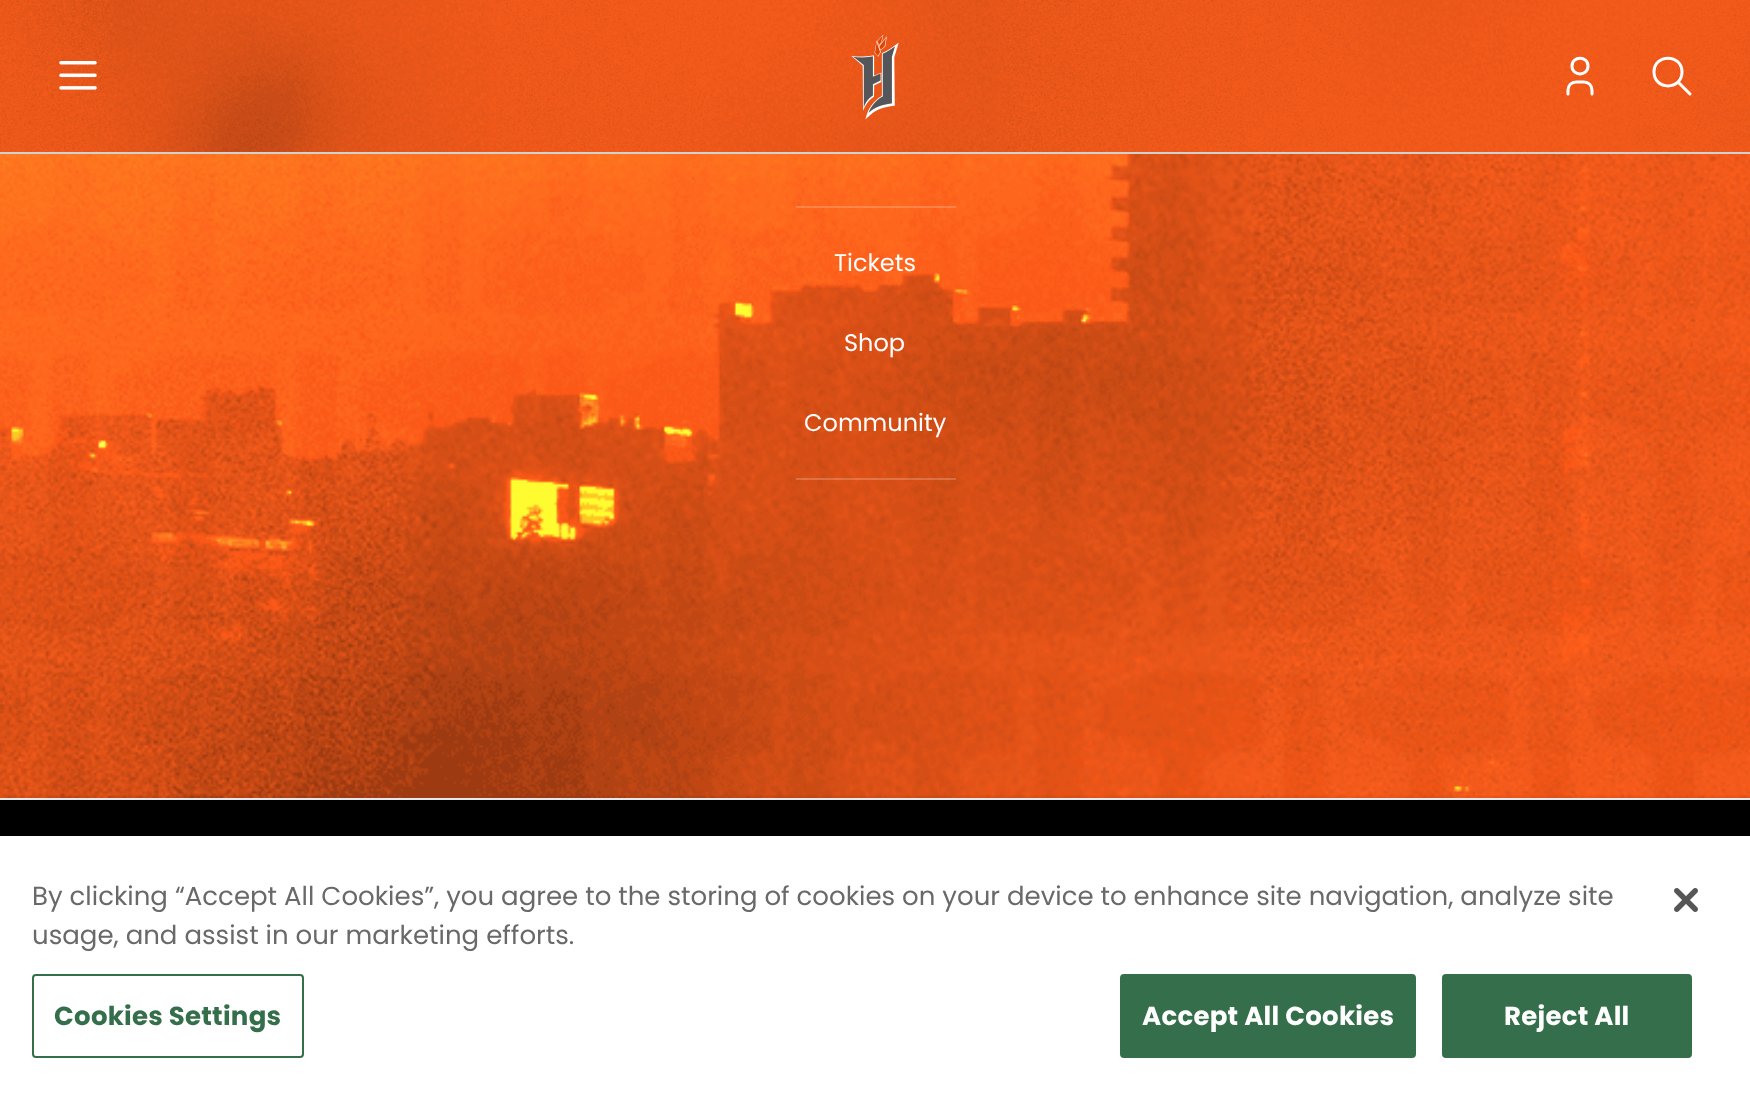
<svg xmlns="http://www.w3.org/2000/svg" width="1750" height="1104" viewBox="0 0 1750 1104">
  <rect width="100%" height="100%" fill="#000"/>
  <path d="M0 152h1750v2H0z" fill="#d1d1d1"/>
  <image x="0" y="0" width="1750" height="152" href="img/1.png"/>
  <image x="59" y="61" width="38" height="29" href="img/2.png"/>
  <image x="851" y="34" width="48" height="86" href="img/3.png"/>
  <path d="M1572 66C1572 76.5 1588 76.5 1588 66C1588 55.5 1572 55.5 1572 66ZM1568 94V90C1568 85.5 1571.5 82 1576 82H1584C1588.5 82 1592 85.5 1592 90V94" fill="none" stroke="#fff" stroke-width="3" stroke-linecap="round" stroke-linejoin="round"/>
  <path d="M1654 72C1654 90.5 1682 90.5 1682 72C1682 53.5 1654 53.5 1654 72ZM1690 94L1678 82" fill="none" stroke="#fff" stroke-width="3" stroke-linecap="round" stroke-linejoin="round"/>
  <image x="0" y="154" width="1750" height="644" href="img/4.png"/>
  <path d="M796 206h160v2H796z" fill="#ffffff33"/>
  <path d="M796 478h160v2H796z" fill="#ffffff33"/>
  <path d="M0 798h1750v2H0z" fill="#e5e7eb"/>
  <path d="M0 836h1750v268H0z" fill="#fff"/>
  <rect x="33" y="975" width="270" height="82" rx="3" fill="none" stroke="#346e4a" stroke-width="2"/>
  <rect x="1121" y="975" width="294" height="82" rx="3" fill="#346e4a" stroke="#346e4a" stroke-width="2"/>
  <rect x="1443" y="975" width="248" height="82" rx="3" fill="#346e4a" stroke="#346e4a" stroke-width="2"/>
  <image x="1674" y="888" width="24" height="24" href="img/5.png"/>
  <g font-family="Poppins" font-size="24" fill="#fff">
    <text x="834" y="271">Tickets</text>
    <text x="844" y="351">Shop</text>
    <text x="804" y="431">Community</text>
  </g>
  <g font-family="Poppins" font-size="26.02" fill="#696969">
    <text x="32" y="905">By clicking “Accept All Cookies”, you agree to the storing of cookies on your device to enhance site navigation, analyze site</text>
    <text x="32" y="944">usage, and assist in our marketing efforts.</text>
  </g>
  <text x="54" y="1025" font-family="Poppins" font-size="26.02" font-weight="bold" letter-spacing="0.25" fill="#346e4a">Cookies Settings</text>
  <g font-family="Poppins" font-size="26.02" font-weight="bold" letter-spacing="0.25" fill="#fff">
    <text x="1142" y="1025">Accept All Cookies</text>
    <text x="1504" y="1025">Reject All</text>
  </g>
</svg>
